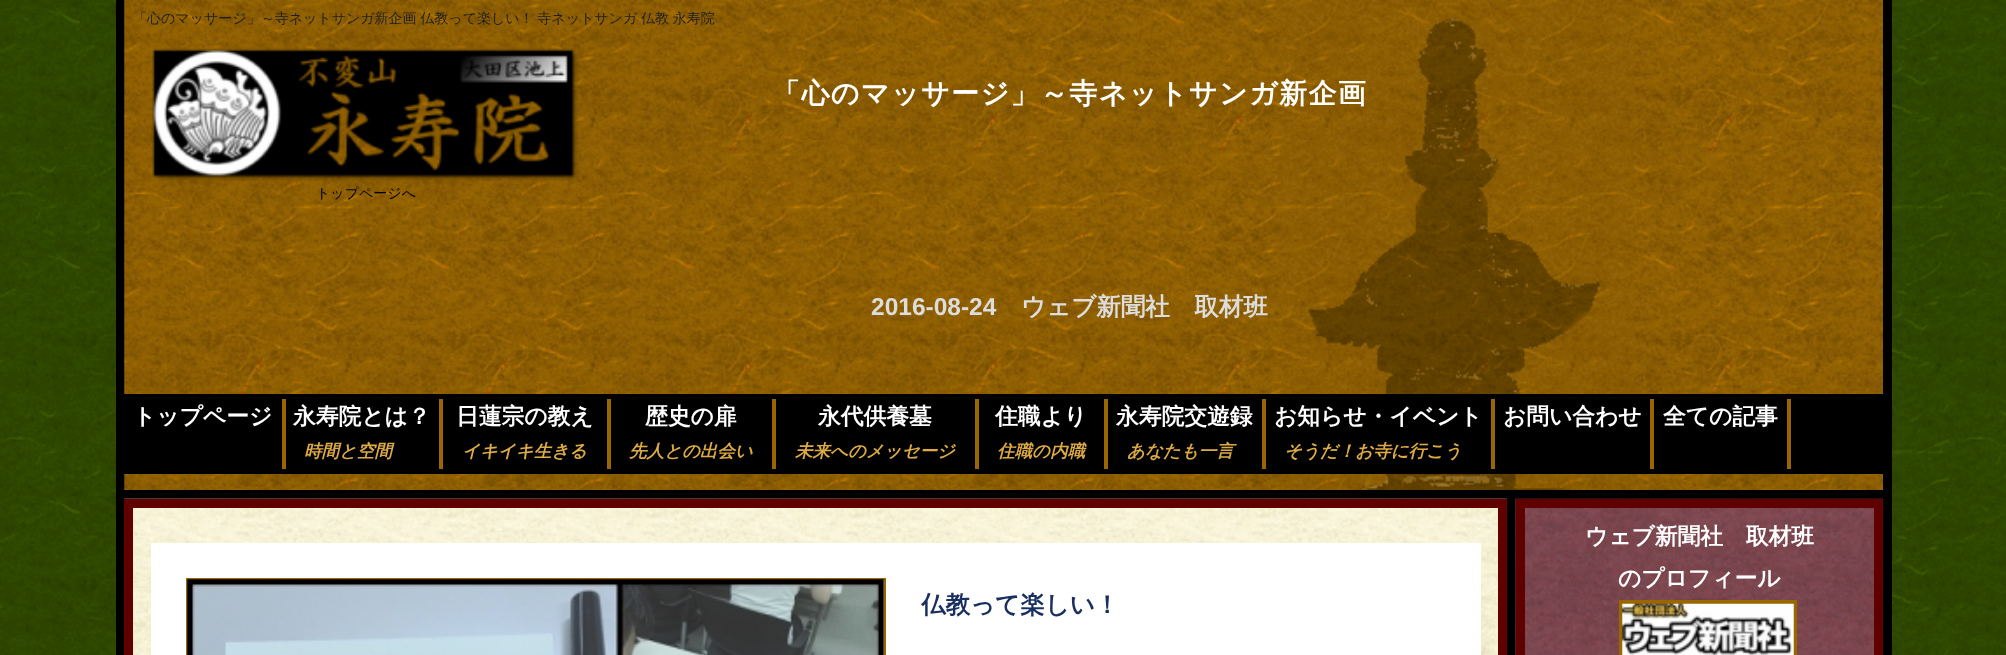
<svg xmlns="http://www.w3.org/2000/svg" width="2006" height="655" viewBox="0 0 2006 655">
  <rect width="100%" height="100%" fill="#fff"/>
  <image x="0" y="0" width="2006" height="655" href="img/1.png"/>
  <path d="M116 0h1776v655H116z" fill="#000"/>
  <image x="124" y="0" width="1759" height="490" href="img/2.png"/>
  <image x="152" y="48" width="427" height="133" href="img/3.png"/>
  <path d="M124 394h1759v80H124z" fill="#000"/>
  <path d="M282 399h4v70H282z" fill="#960"/>
  <path d="M439 399h4v70H439z" fill="#960"/>
  <path d="M607 399h4v70H607z" fill="#960"/>
  <path d="M772 399h4v70H772z" fill="#960"/>
  <path d="M975 399h4v70H975z" fill="#960"/>
  <path d="M1104 399h4v70H1104z" fill="#960"/>
  <path d="M1262 399h4v70H1262z" fill="#960"/>
  <path d="M1491 399h4v70H1491z" fill="#960"/>
  <path d="M1650 399h4v70H1650z" fill="#960"/>
  <path d="M1787 399h4v70H1787z" fill="#960"/>
  <image x="1515" y="498" width="368" height="157" href="img/4.png"/>
  <path d="M1520.5 503.5h358v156H1520.5z" fill="none" stroke="#600000" stroke-width="9"/>
  <path d="M1621 602h174v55H1621z" fill="none" stroke="#960" stroke-width="4"/>
  <image x="1622" y="603" width="172" height="52" href="img/5.png"/>
  <image x="124" y="498" width="1383" height="157" href="img/6.png"/>
  <path d="M128.5 503.5h1374v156H128.5z" fill="none" stroke="#600000" stroke-width="9"/>
  <path d="M151 543h1330v112H151z" fill="#fff"/>
  <path d="M187 579h698v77H187z" fill="none" stroke="#960" stroke-width="2"/>
  <image x="187" y="579" width="697" height="76" href="img/7.png"/>
  <text x="133" y="23" word-spacing="-0.5" font-family="WenQuanYi Zen Hei" font-size="14" font-weight="500" fill="#1f1f1f">「心のマッサージ」～寺ネットサンガ新企画 仏教って楽しい！ 寺ネットサンガ 仏教 永寿院</text>
  <text x="772" y="103" font-family="WenQuanYi Zen Hei" font-size="28" font-weight="bold" letter-spacing="1.4" fill="#fff">「心のマッサージ」～寺ネットサンガ新企画</text>
  <text x="316" y="198" font-family="WenQuanYi Zen Hei" font-size="14" font-weight="500" fill="#000">トップページへ</text>
  <text x="871" y="315" font-family="Liberation Sans" font-size="24.5" font-weight="bold" fill="#ddd">2016-08-24</text>
  <text x="1021" y="315" font-family="WenQuanYi Zen Hei" font-size="24.5" font-weight="bold" fill="#ddd">ウェブ新聞社　取材班</text>
  <g font-family="WenQuanYi Zen Hei" font-size="22.75" font-weight="bold" fill="#fff">
    <text x="133" y="424">トップページ</text>
    <text x="293" y="424">永寿院とは？</text>
  </g>
  <text x="304" y="457" font-family="WenQuanYi Zen Hei" font-size="17.5" font-weight="bold" font-style="italic" fill="#da4">時間と空間</text>
  <text x="456" y="424" font-family="WenQuanYi Zen Hei" font-size="22.75" font-weight="bold" fill="#fff">日蓮宗の教え</text>
  <text x="462" y="457" font-family="WenQuanYi Zen Hei" font-size="17.5" font-weight="bold" font-style="italic" fill="#da4">イキイキ生きる</text>
  <text x="645" y="424" font-family="WenQuanYi Zen Hei" font-size="22.75" font-weight="bold" fill="#fff">歴史の扉</text>
  <text x="629" y="457" font-family="WenQuanYi Zen Hei" font-size="17.5" font-weight="bold" font-style="italic" fill="#da4">先人との出会い</text>
  <text x="818" y="424" font-family="WenQuanYi Zen Hei" font-size="22.75" font-weight="bold" fill="#fff">永代供養墓</text>
  <text x="795" y="457" font-family="WenQuanYi Zen Hei" font-size="17.5" font-weight="bold" font-style="italic" fill="#da4">未来へのメッセージ</text>
  <text x="995" y="424" font-family="WenQuanYi Zen Hei" font-size="22.75" font-weight="bold" fill="#fff">住職より</text>
  <text x="997" y="457" font-family="WenQuanYi Zen Hei" font-size="17.5" font-weight="bold" font-style="italic" fill="#da4">住職の内職</text>
  <text x="1116" y="424" font-family="WenQuanYi Zen Hei" font-size="22.75" font-weight="bold" fill="#fff">永寿院交遊録</text>
  <text x="1127" y="457" font-family="WenQuanYi Zen Hei" font-size="17.5" font-weight="bold" font-style="italic" fill="#da4">あなたも一言</text>
  <text x="1274" y="424" font-family="WenQuanYi Zen Hei" font-size="22.75" font-weight="bold" fill="#fff">お知らせ・イベント</text>
  <text x="1284" y="457" font-family="WenQuanYi Zen Hei" font-size="17.5" font-weight="bold" font-style="italic" fill="#da4">そうだ！お寺に行こう</text>
  <g font-family="WenQuanYi Zen Hei" font-size="22.75" font-weight="bold" fill="#fff">
    <text x="1503" y="424">お問い合わせ</text>
    <text x="1663" y="424">全ての記事</text>
    <text x="1585" y="544">ウェブ新聞社　取材班</text>
    <text x="1618" y="586">のプロフィール</text>
  </g>
  <text x="921" y="613" font-family="WenQuanYi Zen Hei" font-size="24.5" font-weight="bold" fill="#192f60">仏教って楽しい！</text>
</svg>
